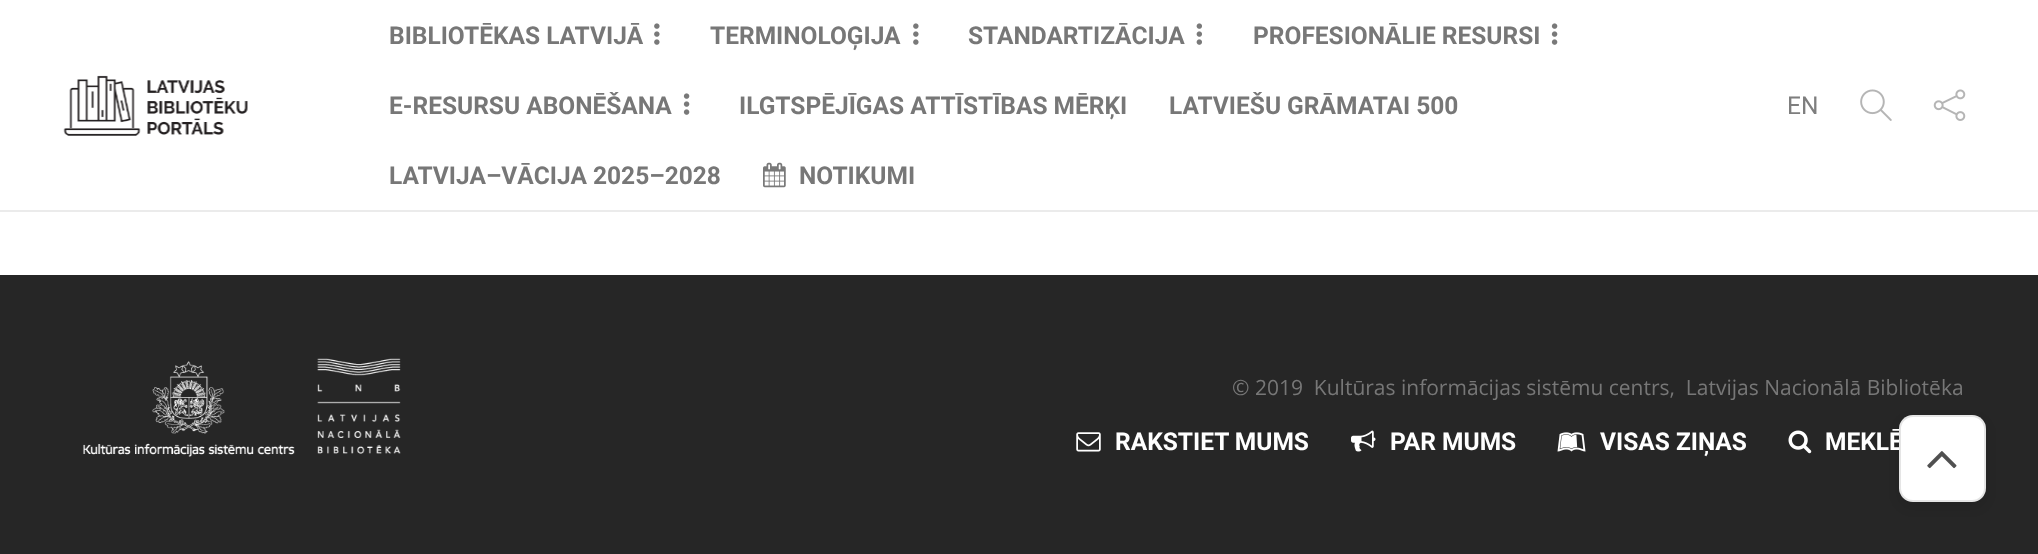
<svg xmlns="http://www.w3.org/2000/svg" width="2038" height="554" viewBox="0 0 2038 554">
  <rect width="100%" height="100%" fill="#fff"/>
  <path d="M0 210h2038v2H0z" fill="#ebebeb"/>
  <image x="63" y="75" width="185" height="61" href="img/1.png"/>
  <image x="654" y="23" width="6" height="22" href="img/2.png"/>
  <image x="913" y="23" width="6" height="22" href="img/2.png"/>
  <image x="1196" y="23" width="6" height="22" href="img/3.png"/>
  <image x="1551" y="23" width="7" height="22" href="img/4.png"/>
  <image x="683" y="93" width="7" height="22" href="img/4.png"/>
  <image x="763" y="162" width="23" height="26" href="img/5.png"/>
  <image x="1860" y="89" width="32" height="32" href="img/6.png"/>
  <image x="1933" y="89" width="33" height="32" href="img/7.png"/>
  <path d="M0 275h2038v279H0z" fill="#262626"/>
  <image x="83" y="358" width="318" height="99" href="img/8.png"/>
  <image x="1076" y="432" width="25" height="20" href="img/9.png"/>
  <image x="1351" y="430" width="25" height="22" href="img/10.png"/>
  <image x="1557" y="432" width="29" height="20" href="img/11.png"/>
  <image x="1788" y="430" width="24" height="24" href="img/12.png"/>
  <rect x="1897" y="418" width="91" height="91" rx="16" fill="#00000012" filter="blur(5px)"/>
  <rect x="1899" y="415" width="87" height="87" rx="14" fill="#fff"/>
  <g font-family="Roboto" font-size="24.5" font-weight="bold" fill="#777">
    <text x="389" y="44">BIBLIOTĒKAS LATVIJĀ</text>
    <text x="710" y="44">TERMINOLOĢIJA</text>
    <text x="968" y="44">STANDARTIZĀCIJA</text>
    <text x="1253" y="44">PROFESIONĀLIE RESURSI</text>
    <text x="389" y="114">E-RESURSU ABONĒŠANA</text>
    <text x="739" y="114">ILGTSPĒJĪGAS ATTĪSTĪBAS MĒRĶI</text>
    <text x="1169" y="114">LATVIEŠU GRĀMATAI 500</text>
    <text x="389" y="184">LATVIJA–VĀCIJA 2025–2028</text>
    <text x="799" y="184">NOTIKUMI</text>
  </g>
  <text x="1787" y="114" font-family="Roboto" font-size="24.5" fill="#7e7e7e">EN</text>
  <text x="1232" y="395" font-family="Open Sans" font-size="21" fill="#777" xml:space="preserve">© 2019  Kultūras informācijas sistēmu centrs,  Latvijas Nacionālā Bibliotēka</text>
  <g font-family="Roboto" font-size="24.5" font-weight="bold" fill="#fff">
    <text x="1115" y="450">RAKSTIET MUMS</text>
    <text x="1390" y="450">PAR MUMS</text>
    <text x="1600" y="450">VISAS ZIŅAS</text>
    <text x="1825" y="450">MEKLĒ</text>
  </g>
  <rect x="1900" y="416" width="85" height="85" rx="13" fill="none" stroke="#0000001a" stroke-width="2"/>
  <image x="1927" y="451" width="30" height="18" href="img/13.png"/>
</svg>
